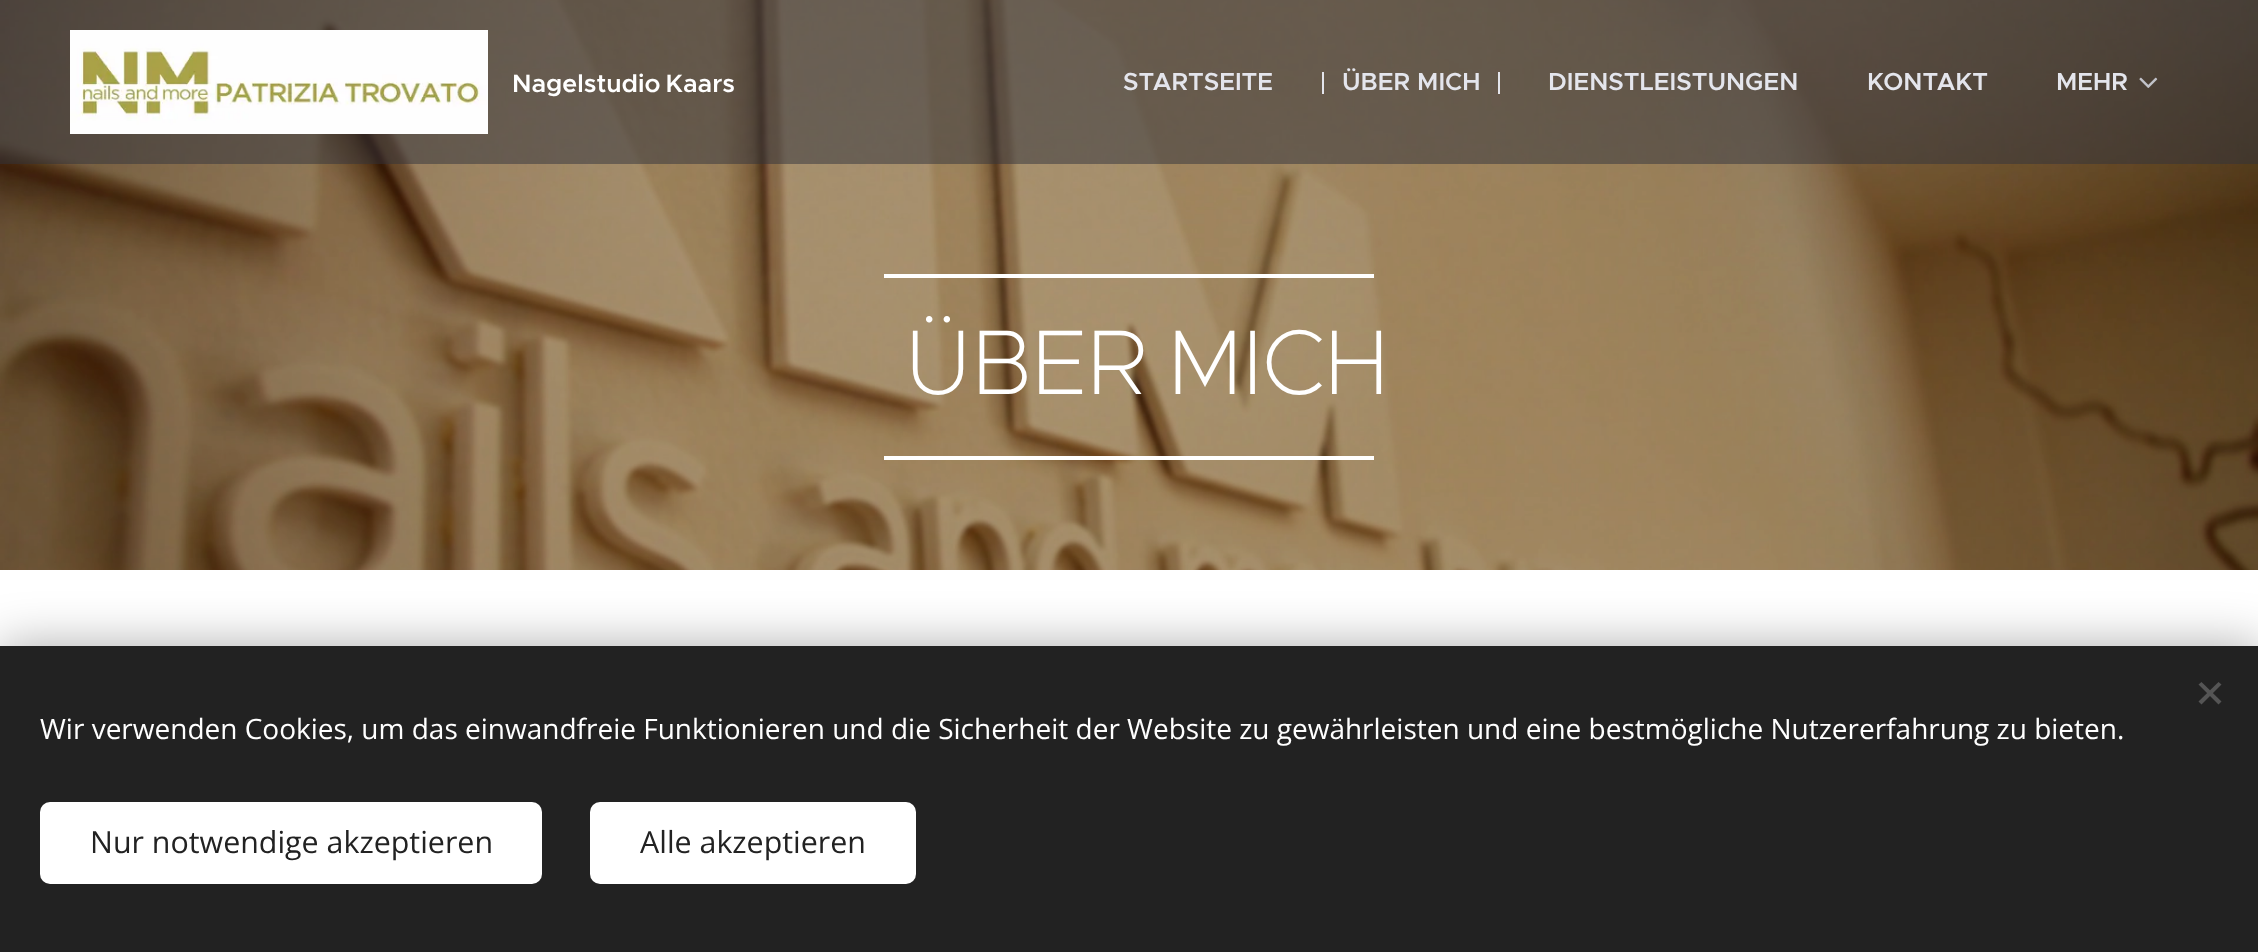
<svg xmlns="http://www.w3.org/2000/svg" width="2258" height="952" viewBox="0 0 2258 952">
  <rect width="100%" height="100%" fill="#fff"/>
  <image x="0" y="0" width="2258" height="570" href="img/3.png"/>
  <path d="M0 0h2258v164H0z" fill="#30323b80"/>
  <image x="70" y="30" width="418" height="104" href="img/1.png"/>
  <path d="M1322 72h2v22H1322z" fill="#e4e5ec"/>
  <path d="M1498 72h2v22H1498z" fill="#e4e5ec"/>
  <image x="2139" y="77" width="19" height="11" href="img/2.png"/>
  <path d="M884 274h490v4H884z" fill="#fff"/>
  <path d="M884 456h490v4H884z" fill="#fff"/>
  <path d="M0 646h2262v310H0z" fill="#00000054" filter="blur(25px)"/>
  <path d="M0 646h2258v306H0z" fill="#222"/>
  <path d="M2198.5 701.5L2218.5 682L2221.5 684.5L2201.5 704.5Z" fill="#555"/>
  <path d="M2201.5 682L2221.5 701.5L2218.5 704.5L2198.5 684.5Z" fill="#555"/>
  <rect x="40" y="802" width="502" height="82" rx="10" fill="#fff"/>
  <rect x="590" y="802" width="326" height="82" rx="10" fill="#fff"/>
  <text x="512" y="92" word-spacing="-2" font-family="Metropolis" font-size="25.25" font-weight="600" fill="#fff">Nagelstudio Kaars</text>
  <g font-family="Metropolis" font-size="24.75" font-weight="600" fill="#e4e5ec">
    <text x="1123" y="90">STARTSEITE</text>
    <text x="1342" y="90">ÜBER MICH</text>
    <text x="1548" y="90">DIENSTLEISTUNGEN</text>
    <text x="1867" y="90">KONTAKT</text>
    <text x="2056" y="90">MEHR</text>
  </g>
  <text x="905" y="394" word-spacing="-6" font-family="Metropolis" font-size="92" font-weight="200" fill="#fff">ÜBER MICH</text>
  <text x="40" y="739" font-family="Open Sans" font-size="28" fill="#fff">Wir verwenden Cookies, um das einwandfreie Funktionieren und die Sicherheit der Website zu gewährleisten und eine bestmögliche Nutzererfahrung zu bieten.</text>
  <g font-family="Open Sans" font-size="30.4" fill="#222">
    <text x="90" y="853">Nur notwendige akzeptieren</text>
    <text x="640" y="853">Alle akzeptieren</text>
  </g>
</svg>
